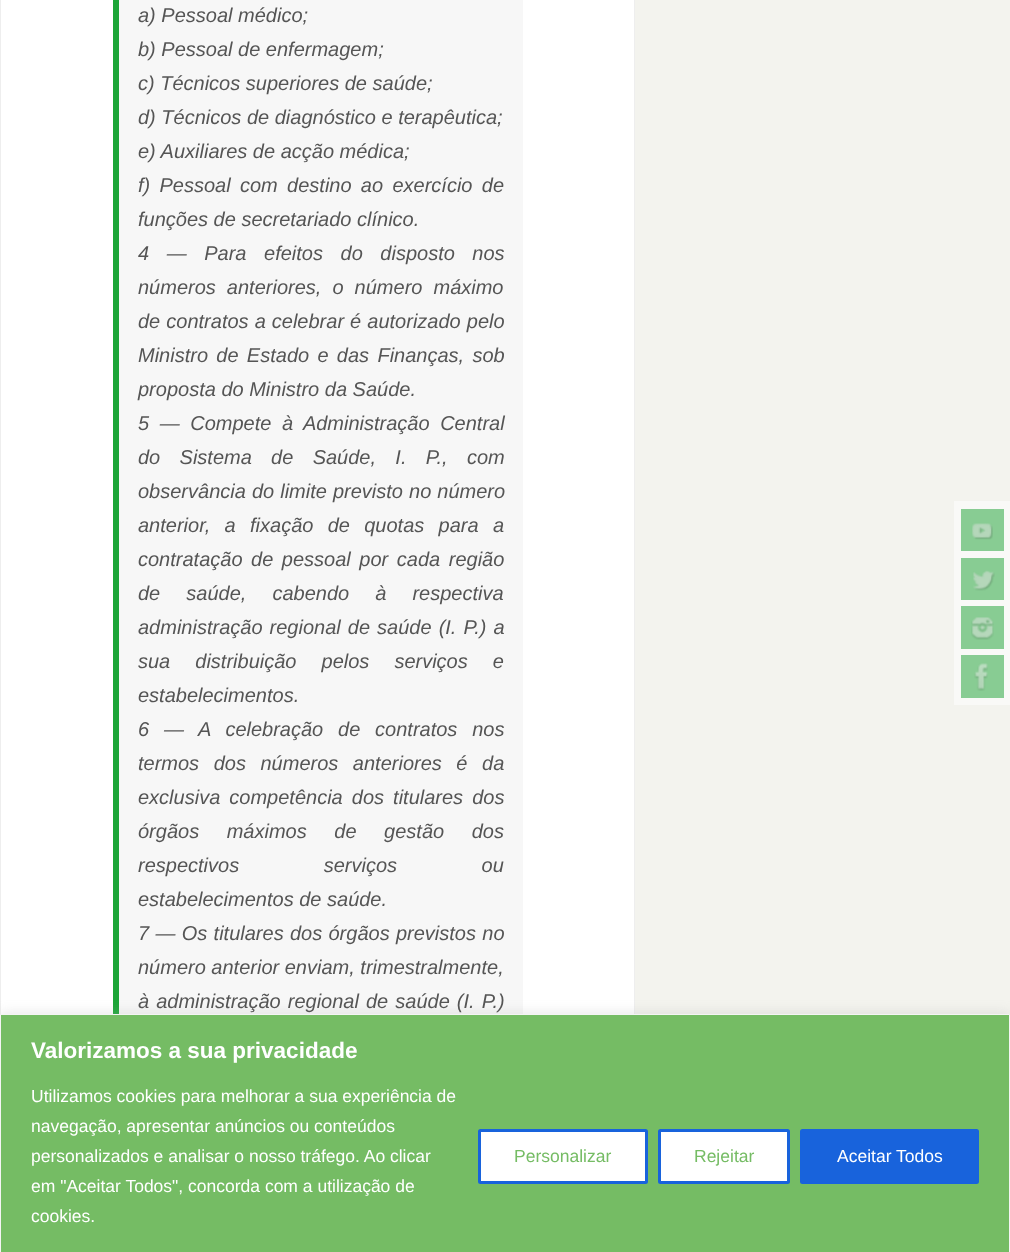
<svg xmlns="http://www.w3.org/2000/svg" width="1010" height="1252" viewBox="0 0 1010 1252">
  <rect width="100%" height="100%" fill="#f3f3ee"/>
  <path d="M1 0h633v1014H1z" fill="#fff"/>
  <path d="M0.5 -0.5h634v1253H0.5z" fill="none" stroke="#eee"/>
  <path d="M119 0h404v1014H119z" fill="#f7f7f7"/>
  <path d="M113 0h6v1014H113z" fill="#1ca537"/>
  <path d="M954 501h56v204H954z" fill="#f9f9f7"/>
  <path d="M961 509h43v42H961z" fill="#88cc93"/>
  <image x="972" y="523" width="21" height="17" href="img/1.png"/>
  <path d="M961 558h43v42H961z" fill="#88cc93"/>
  <image x="973" y="570" width="22" height="21" href="img/2.png"/>
  <path d="M961 606h43v43H961z" fill="#88cc93"/>
  <image x="971" y="617" width="23" height="23" href="img/3.png"/>
  <path d="M961 655h43v43H961z" fill="#88cc93"/>
  <image x="974" y="663" width="14" height="28" href="img/4.png"/>
  <path d="M0 1013h1010v238H0z" fill="#acabab4d" filter="blur(6px)"/>
  <path d="M0.5 1014.5h1009v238H0.5z" fill="#75bc64" stroke="#f4f4f4"/>
  <rect x="479.5" y="1130.5" width="167" height="52" rx="1" fill="#fff" stroke="#1863dc" stroke-width="3"/>
  <rect x="659.5" y="1130.5" width="129" height="52" rx="1" fill="#fff" stroke="#1863dc" stroke-width="3"/>
  <rect x="801.5" y="1130.5" width="176" height="52" rx="1" fill="#1863dc" stroke="#1863dc" stroke-width="3"/>
  <g font-family="Liberation Sans" font-size="20" font-style="italic" fill="#555">
    <text x="138" y="22">a) Pessoal médico;</text>
    <text x="138" y="56">b) Pessoal de enfermagem;</text>
    <text x="138" y="90">c) Técnicos superiores de saúde;</text>
    <text x="138" y="124">d) Técnicos de diagnóstico e terapêutica;</text>
    <text x="138" y="158">e) Auxiliares de acção médica;</text>
    <text x="138" y="192" word-spacing="3.75">f) Pessoal com destino ao exercício de</text>
    <text x="138" y="226">funções de secretariado clínico.</text>
    <text x="138" y="260" word-spacing="12">4 — Para efeitos do disposto nos</text>
    <text x="138" y="294" word-spacing="5.5">números anteriores, o número máximo</text>
    <text x="138" y="328" word-spacing="0.5">de contratos a celebrar é autorizado pelo</text>
    <text x="138" y="362" word-spacing="2.75">Ministro de Estado e das Finanças, sob</text>
    <text x="138" y="396">proposta do Ministro da Saúde.</text>
    <text x="138" y="430" word-spacing="5">5 — Compete à Administração Central</text>
    <text x="138" y="464" word-spacing="13.75">do Sistema de Saúde, I. P., com</text>
    <text x="138" y="498" word-spacing="0.5">observância do limite previsto no número</text>
    <text x="138" y="532" word-spacing="8.75">anterior, a fixação de quotas para a</text>
    <text x="138" y="566" word-spacing="3">contratação de pessoal por cada região</text>
    <text x="138" y="600" word-spacing="20.5">de saúde, cabendo à respectiva</text>
    <text x="138" y="634" word-spacing="1.5">administração regional de saúde (I. P.) a</text>
    <text x="138" y="668" word-spacing="19.5">sua distribuição pelos serviços e</text>
    <text x="138" y="702">estabelecimentos.</text>
    <text x="138" y="736" word-spacing="9.25">6 — A celebração de contratos nos</text>
    <text x="138" y="770" word-spacing="9">termos dos números anteriores é da</text>
    <text x="138" y="804" word-spacing="3.5">exclusiva competência dos titulares dos</text>
    <text x="138" y="838" word-spacing="22">órgãos máximos de gestão dos</text>
    <text x="138" y="872" word-spacing="79">respectivos serviços ou</text>
    <text x="138" y="906">estabelecimentos de saúde.</text>
    <text x="138" y="940" word-spacing="0.75">7 — Os titulares dos órgãos previstos no</text>
    <text x="138" y="974">número anterior enviam, trimestralmente,</text>
    <text x="138" y="1008" word-spacing="1.5">à administração regional de saúde (I. P.)</text>
  </g>
  <text x="31" y="1058" font-family="Liberation Sans" font-size="22.5" font-weight="bold" fill="#fff">Valorizamos a sua privacidade</text>
  <g font-family="Liberation Sans" font-size="17.5" fill="#fff">
    <text x="31" y="1102">Utilizamos cookies para melhorar a sua experiência de</text>
    <text x="31" y="1132">navegação, apresentar anúncios ou conteúdos</text>
    <text x="31" y="1162">personalizados e analisar o nosso tráfego. Ao clicar</text>
    <text x="31" y="1192">em "Aceitar Todos", concorda com a utilização de</text>
    <text x="31" y="1222">cookies.</text>
  </g>
  <g font-family="Liberation Sans" font-size="17.5" fill="#75bc64">
    <text x="514" y="1162">Personalizar</text>
    <text x="694" y="1162">Rejeitar</text>
  </g>
  <text x="837" y="1162" font-family="Liberation Sans" font-size="17.5" fill="#fff">Aceitar Todos</text>
</svg>
